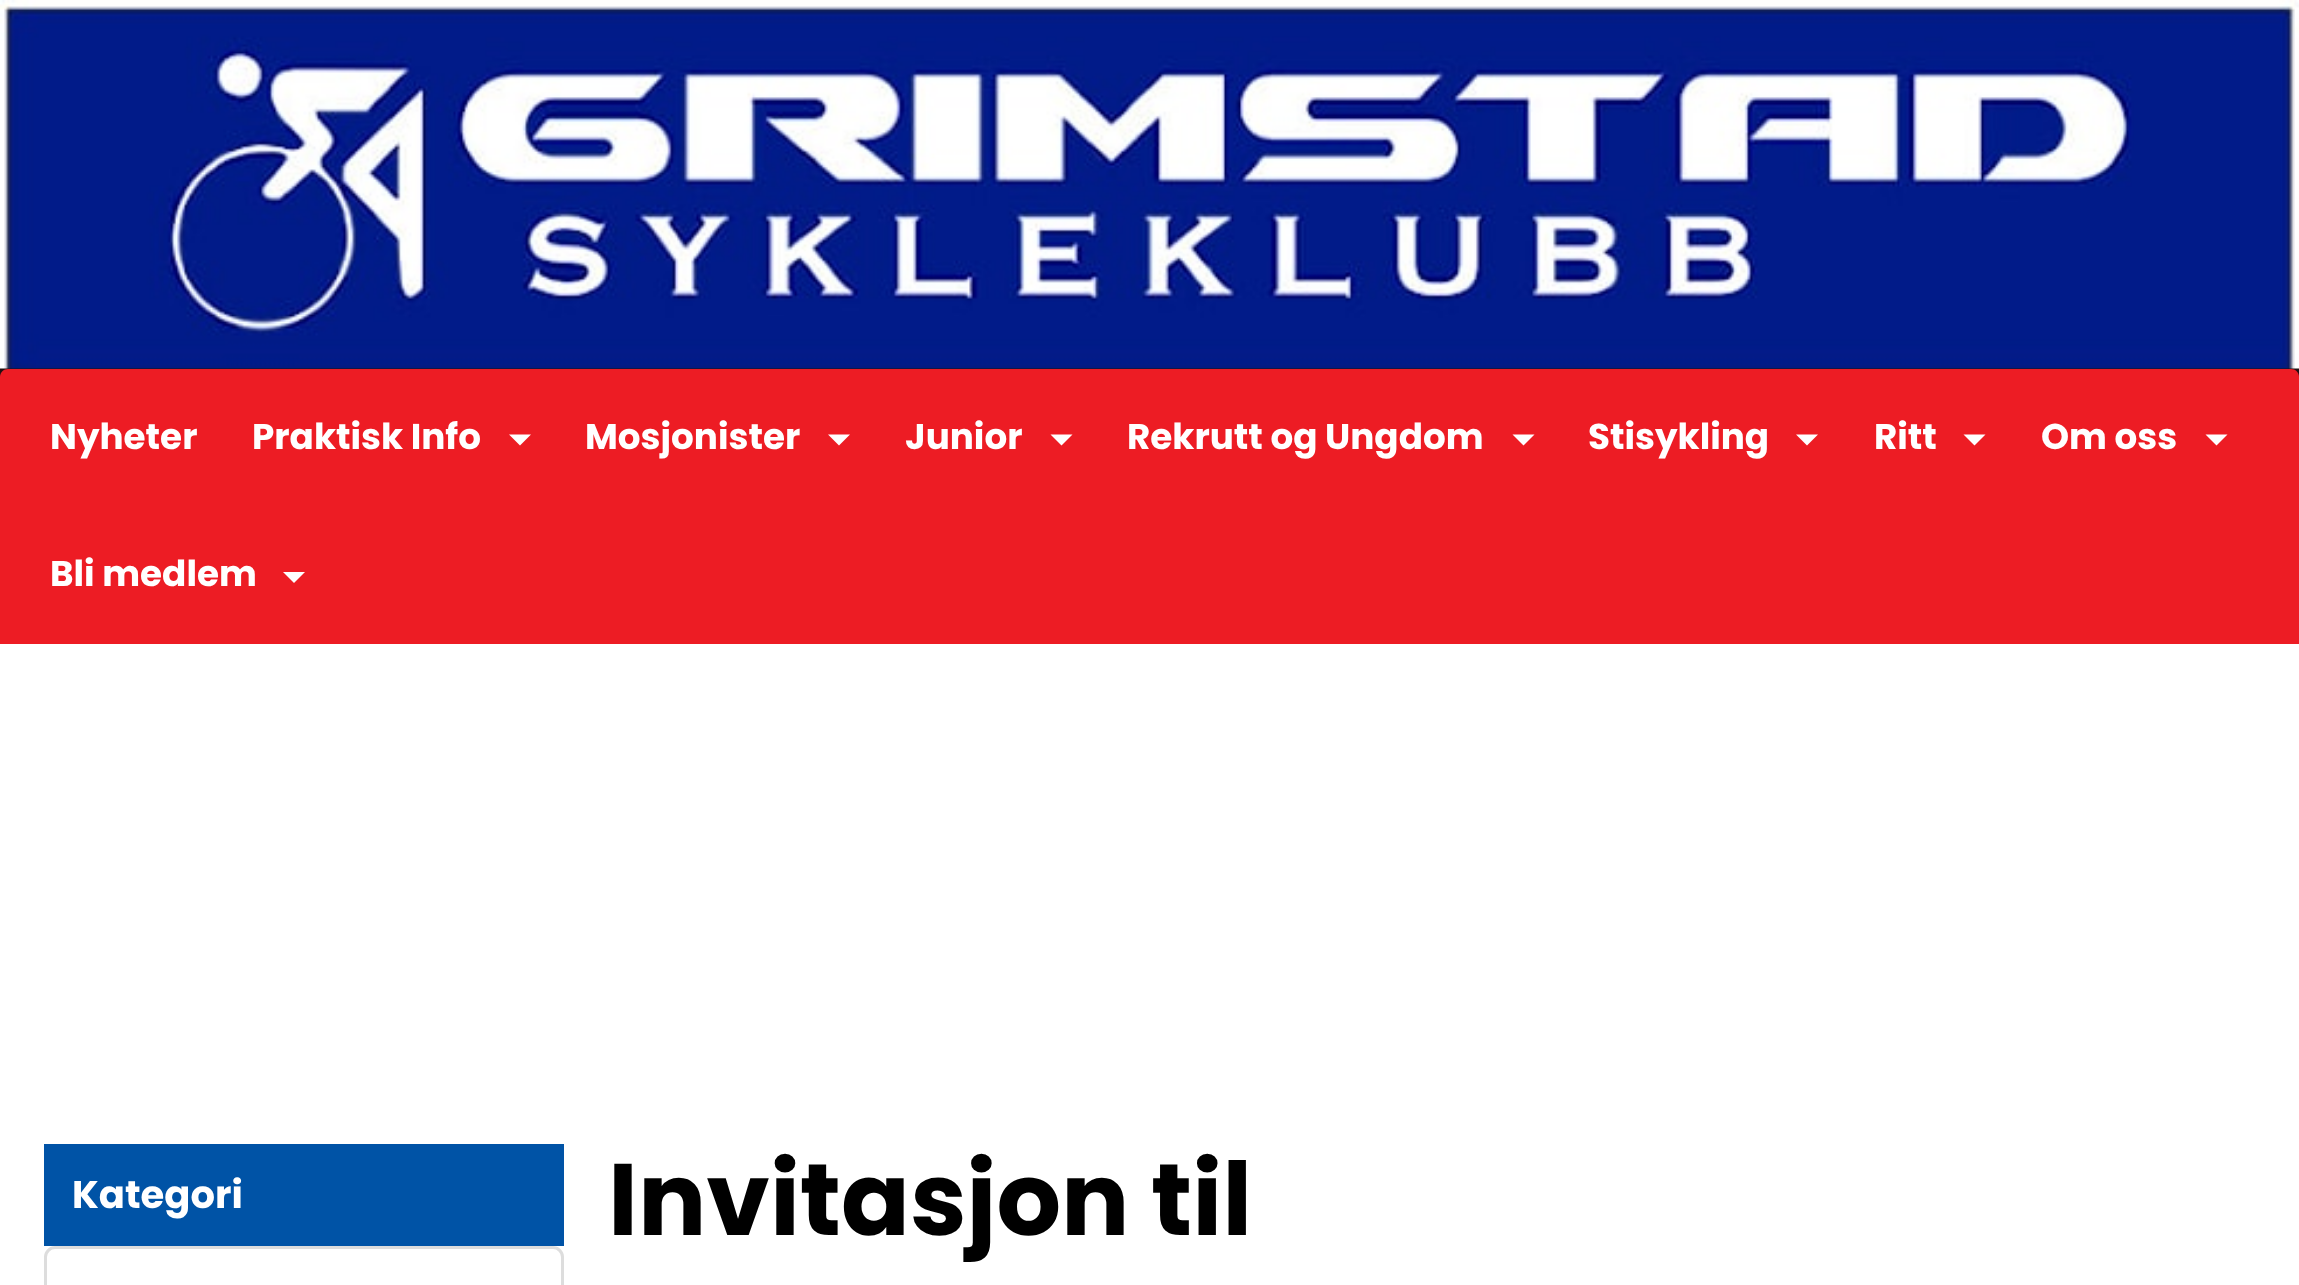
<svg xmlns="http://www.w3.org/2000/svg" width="2299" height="1285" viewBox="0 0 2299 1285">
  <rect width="100%" height="100%" fill="#1f1013"/>
  <image x="0" y="0" width="2299" height="369" href="img/1.png"/>
  <path d="M8 369H2291C2295.5 369 2299 372.5 2299 377V644H0V377C0 372.5 3.5 369 8 369Z" fill="#ed1c24"/>
  <path d="M509 434.5H531L520 445.5Z" fill="#fff"/>
  <path d="M828 434.5H850L839 445.5Z" fill="#fff"/>
  <path d="M1050.5 434.5H1072.5L1061.5 445.5Z" fill="#fff"/>
  <path d="M1512.5 434.5H1534.5L1523.5 445.5Z" fill="#fff"/>
  <path d="M1796 434.5H1818L1807 445.5Z" fill="#fff"/>
  <path d="M1963.5 434.5H1985.5L1974.5 445.5Z" fill="#fff"/>
  <path d="M2205.5 434.5H2227.5L2216.5 445.5Z" fill="#fff"/>
  <path d="M283 572H305L294 583Z" fill="#fff"/>
  <path d="M0 644h2299v641H0z" fill="#fff"/>
  <path d="M44 1144h520v102H44z" fill="#0053a6"/>
  <path d="M55 1247.5H553C558 1247.5 562.5 1252 562.5 1257V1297.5H45.5V1257C45.5 1252 50 1247.5 55 1247.5Z" fill="none" stroke="#ddd" stroke-width="3"/>
  <g font-family="Poppins" font-size="35.75" font-weight="bold" fill="#fff">
    <text x="50" y="449">Nyheter</text>
    <text x="252" y="449">Praktisk Info</text>
    <text x="585" y="449">Mosjonister</text>
    <text x="905" y="449">Junior</text>
    <text x="1127" y="449">Rekrutt og Ungdom</text>
    <text x="1588" y="449">Stisykling</text>
    <text x="1874" y="449">Ritt</text>
    <text x="2041" y="449">Om oss</text>
    <text x="50" y="586">Bli medlem</text>
  </g>
  <text x="72" y="1208" font-family="Poppins" font-size="38.5" font-weight="bold" fill="#fff">Kategori</text>
  <text x="608" y="1235" font-family="Poppins" font-size="101.5" font-weight="bold" fill="#000">Invitasjon til</text>
</svg>
